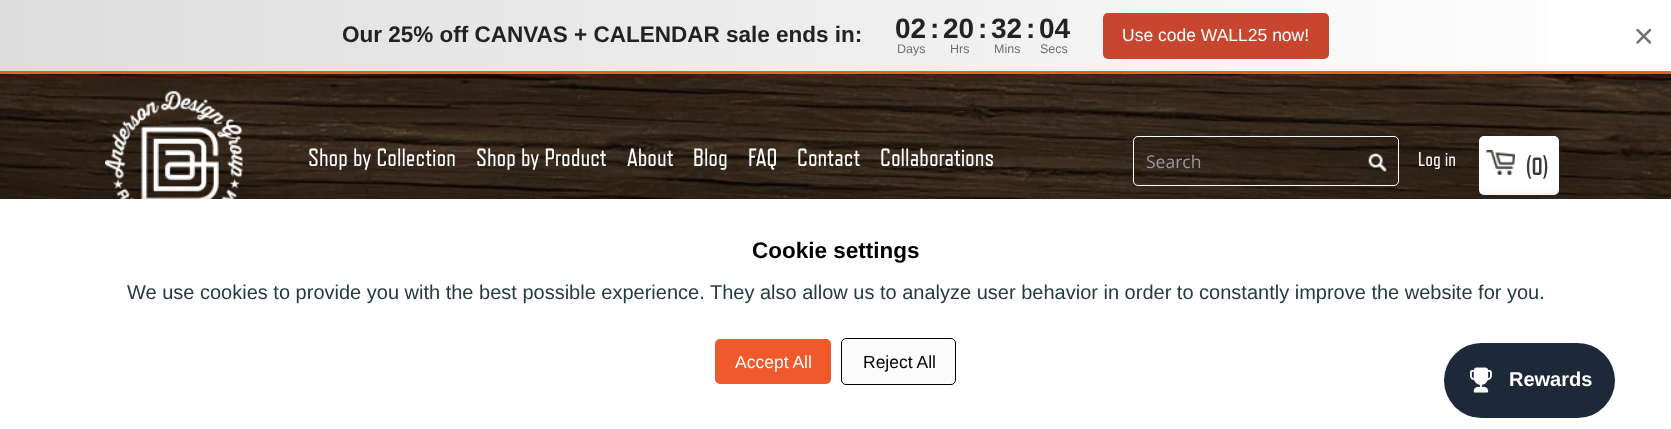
<svg xmlns="http://www.w3.org/2000/svg" width="1671" height="429" viewBox="0 0 1671 429">
  <defs>
    <linearGradient id="g1" gradientUnits="userSpaceOnUse" x1="0" y1="36" x2="1671" y2="36"><stop offset="0" stop-color="#ddd"/><stop offset="1" stop-color="#fff"/></linearGradient>
  </defs>
  <rect width="100%" height="100%" fill="#fff"/>
  <path d="M0 0h1548v71H0z" fill="url(#g1)"/>
  <rect x="1103" y="13" width="226" height="46" rx="5" fill="#c84630"/>
  <image x="1636" y="29" width="15" height="15" href="img/1.png"/>
  <image x="0" y="74" width="1671" height="125" href="img/2.png"/>
  <path d="M0 71h1671v3H0z" fill="#ef592b"/>
  <image x="105" y="91" width="138" height="108" href="img/3.png"/>
  <path d="M1138 139H1394C1396 139 1398 140 1398 142C1398 140 1396 138 1394 138H1138C1136 138 1135 139 1134 140C1135 139 1136 139 1138 139Z" fill="#00000012"/>
  <rect x="1133.5" y="136.5" width="265" height="49" rx="4.5" fill="none" stroke="#fff"/>
  <image x="1368" y="153" width="19" height="19" href="img/4.png"/>
  <rect x="1479" y="136" width="80" height="59" rx="5" fill="#fff"/>
  <image x="1486" y="150" width="29" height="25" href="img/5.png"/>
  <path d="M0 196h1671v232H0z" fill="#0000001a" filter="blur(6px)"/>
  <path d="M0 199h1671v230H0z" fill="#fff"/>
  <rect x="715" y="339" width="116" height="45" rx="5" fill="#ef592b"/>
  <rect x="841.5" y="338.5" width="114" height="46" rx="4.5" fill="#fbfbfb" stroke="#000"/>
  <rect x="1444" y="343" width="171" height="75" rx="37.5" fill="#1d2939"/>
  <image x="1470" y="367" width="22" height="26" href="img/6.png"/>
  <text x="342" y="42" font-family="Liberation Sans" font-size="22.5" font-weight="bold" fill="#202223">Our 25% off CANVAS + CALENDAR sale ends in:</text>
  <g font-family="Liberation Sans" font-size="28" font-weight="bold" fill="#202223">
    <text x="895" y="38">02</text>
    <text x="930" y="38">:</text>
    <text x="943" y="38">20</text>
    <text x="978" y="38">:</text>
    <text x="991" y="38">32</text>
    <text x="1026" y="38">:</text>
    <text x="1039" y="38">04</text>
  </g>
  <g font-family="Liberation Sans" font-size="12.5" fill="#6d7175">
    <text x="897" y="53">Days</text>
    <text x="950" y="53">Hrs</text>
    <text x="994" y="53">Mins</text>
    <text x="1040" y="53">Secs</text>
  </g>
  <text x="1122" y="41" font-family="Liberation Sans" font-size="17.5" fill="#fff">Use code WALL25 now!</text>
  <g font-family="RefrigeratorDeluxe" font-size="25" fill="#fff">
    <text x="308" y="166">Shop by Collection</text>
    <text x="476" y="166">Shop by Product</text>
    <text x="627" y="166">About</text>
    <text x="693" y="166">Blog</text>
    <text x="748" y="166">FAQ</text>
    <text x="797" y="166">Contact</text>
    <text x="880" y="166">Collaborations</text>
  </g>
  <text x="1146" y="168" font-family="Open Sans" font-size="17.5" fill="#999">Search</text>
  <text x="1418" y="166" font-family="RefrigeratorDeluxe" font-size="20" fill="#fff">Log in</text>
  <text x="1526" y="175" font-family="RefrigeratorDeluxe" font-size="25" font-weight="bold" fill="#3d3b37">(0)</text>
  <text x="752" y="258" font-family="Liberation Sans" font-size="22.5" font-weight="bold" fill="#000">Cookie settings</text>
  <text x="127" y="299" font-family="Liberation Sans" font-size="20" fill="#223b44">We use cookies to provide you with the best possible experience. They also allow us to analyze user behavior in order to constantly improve the website for you.</text>
  <text x="735" y="368" font-family="Liberation Sans" font-size="17.5" fill="#fff">Accept All</text>
  <text x="863" y="368" font-family="Liberation Sans" font-size="17.5" fill="#000">Reject All</text>
  <text x="1509" y="386" font-family="Liberation Sans" font-size="20" font-weight="bold" fill="#fff">Rewards</text>
</svg>
